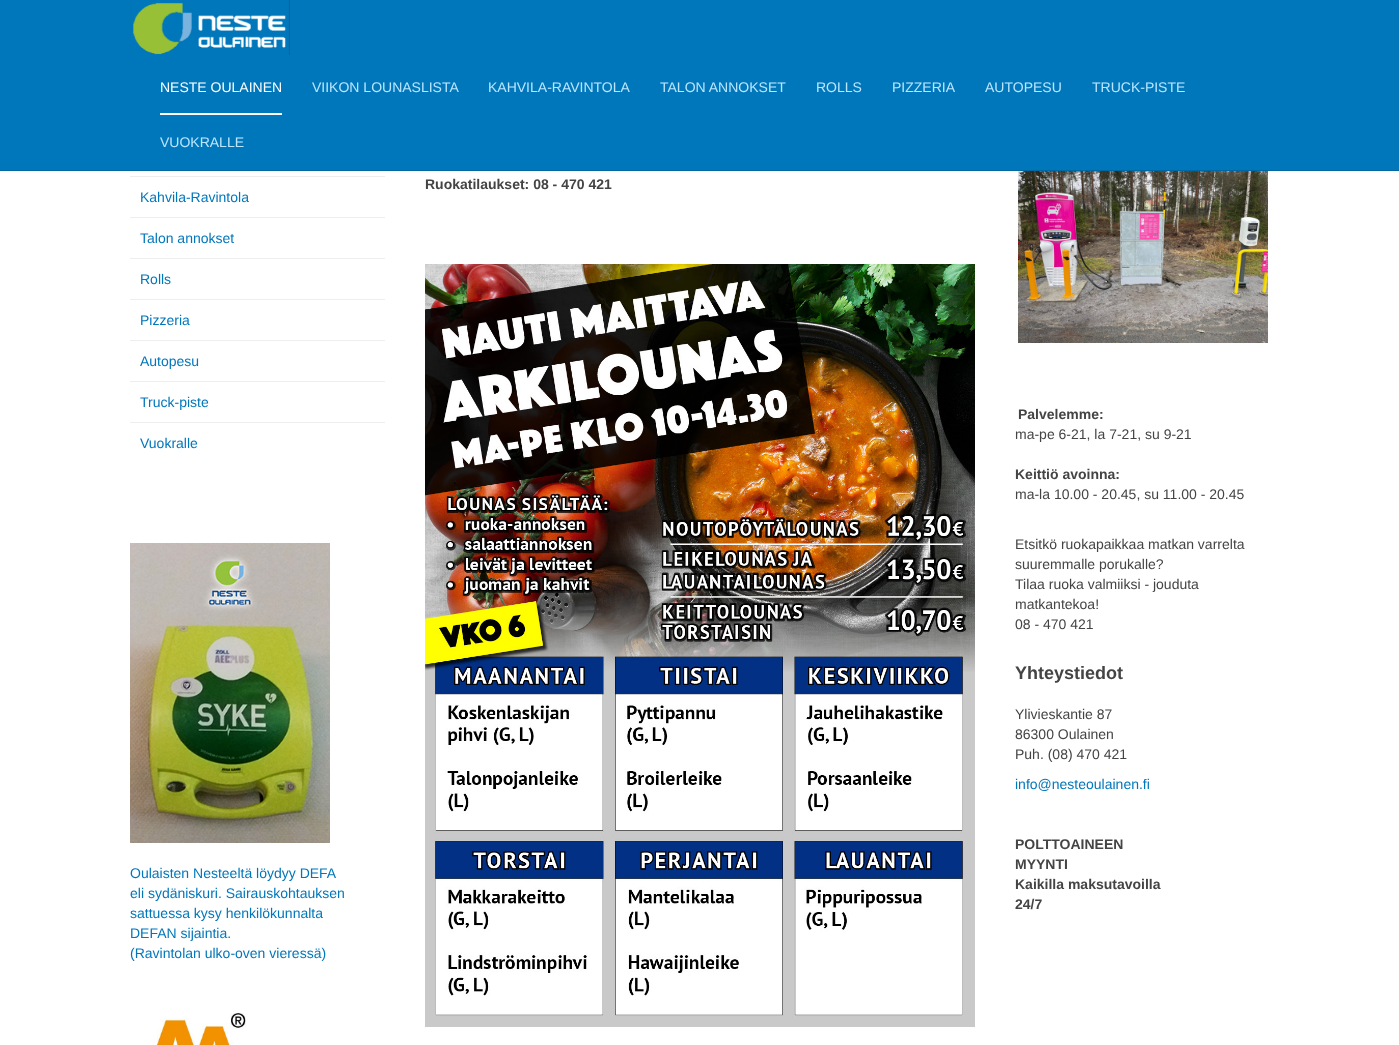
<svg xmlns="http://www.w3.org/2000/svg" width="1399" height="1045" viewBox="0 0 1399 1045">
  <rect width="100%" height="100%" fill="#fff"/>
  <path d="M0 0h1399v170H0z" fill="#07b"/>
  <path d="M0 170h1399v1H0z" fill="#0067a2"/>
  <path d="M130 0h160v55H130z" fill="#0067a2"/>
  <image x="130" y="0" width="159" height="55" href="img/1.png"/>
  <path d="M160 113h122v2H160z" fill="#fff"/>
  <image x="425" y="264" width="550" height="763" href="img/2.png"/>
  <path d="M130 176h255v1H130z" fill="#eee"/>
  <path d="M130 217h255v1H130z" fill="#eee"/>
  <path d="M130 258h255v1H130z" fill="#eee"/>
  <path d="M130 299h255v1H130z" fill="#eee"/>
  <path d="M130 340h255v1H130z" fill="#eee"/>
  <path d="M130 381h255v1H130z" fill="#eee"/>
  <path d="M130 422h255v1H130z" fill="#eee"/>
  <image x="130" y="543" width="200" height="300" href="img/3.png"/>
  <image x="156" y="1013" width="90" height="32" href="img/4.png"/>
  <image x="1018" y="171" width="250" height="172" href="img/5.png"/>
  <text x="160" y="92" font-family="Liberation Sans" font-size="14" fill="#fff">NESTE OULAINEN</text>
  <g font-family="Liberation Sans" font-size="14" fill="#bbe6ff">
    <text x="312" y="92">VIIKON LOUNASLISTA</text>
    <text x="488" y="92">KAHVILA-RAVINTOLA</text>
    <text x="660" y="92">TALON ANNOKSET</text>
    <text x="816" y="92">ROLLS</text>
    <text x="892" y="92">PIZZERIA</text>
    <text x="985" y="92">AUTOPESU</text>
    <text x="1092" y="92">TRUCK-PISTE</text>
    <text x="160" y="147">VUOKRALLE</text>
  </g>
  <text x="425" y="189" font-family="Liberation Sans" font-size="14" font-weight="bold" fill="#444">Ruokatilaukset: 08 - 470 421</text>
  <g font-family="Liberation Sans" font-size="14" fill="#07b">
    <text x="140" y="202">Kahvila-Ravintola</text>
    <text x="140" y="243">Talon annokset</text>
    <text x="140" y="284">Rolls</text>
    <text x="140" y="325">Pizzeria</text>
    <text x="140" y="366">Autopesu</text>
    <text x="140" y="407">Truck-piste</text>
    <text x="140" y="448">Vuokralle</text>
    <text x="130" y="878">Oulaisten Nesteeltä löydyy DEFA</text>
    <text x="130" y="898">eli sydäniskuri. Sairauskohtauksen</text>
    <text x="130" y="918">sattuessa kysy henkilökunnalta</text>
    <text x="130" y="938">DEFAN sijaintia.</text>
    <text x="130" y="958">(Ravintolan ulko-oven vieressä)</text>
  </g>
  <text x="1018" y="419" font-family="Liberation Sans" font-size="14" font-weight="bold" fill="#444">Palvelemme:</text>
  <text x="1015" y="439" font-family="Liberation Sans" font-size="14" fill="#444">ma-pe 6-21, la 7-21, su 9-21</text>
  <text x="1015" y="479" font-family="Liberation Sans" font-size="14" font-weight="bold" fill="#444">Keittiö avoinna:</text>
  <g font-family="Liberation Sans" font-size="14" fill="#444">
    <text x="1015" y="499">ma-la 10.00 - 20.45, su 11.00 - 20.45</text>
    <text x="1015" y="549">Etsitkö ruokapaikkaa matkan varrelta</text>
    <text x="1015" y="569">suuremmalle porukalle?</text>
    <text x="1015" y="589">Tilaa ruoka valmiiksi - jouduta</text>
    <text x="1015" y="609">matkantekoa!</text>
    <text x="1015" y="629">08 - 470 421</text>
  </g>
  <text x="1015" y="679" font-family="Liberation Sans" font-size="18" font-weight="bold" fill="#444">Yhteystiedot</text>
  <g font-family="Liberation Sans" font-size="14" fill="#444">
    <text x="1015" y="719">Ylivieskantie 87</text>
    <text x="1015" y="739">86300 Oulainen</text>
    <text x="1015" y="759">Puh. (08) 470 421</text>
  </g>
  <text x="1015" y="789" font-family="Liberation Sans" font-size="14" fill="#07b">info@nesteoulainen.fi</text>
  <g font-family="Liberation Sans" font-size="14" font-weight="bold" fill="#444">
    <text x="1015" y="849">POLTTOAINEEN</text>
    <text x="1015" y="869">MYYNTI</text>
    <text x="1015" y="889">Kaikilla maksutavoilla</text>
    <text x="1015" y="909">24/7</text>
  </g>
</svg>
